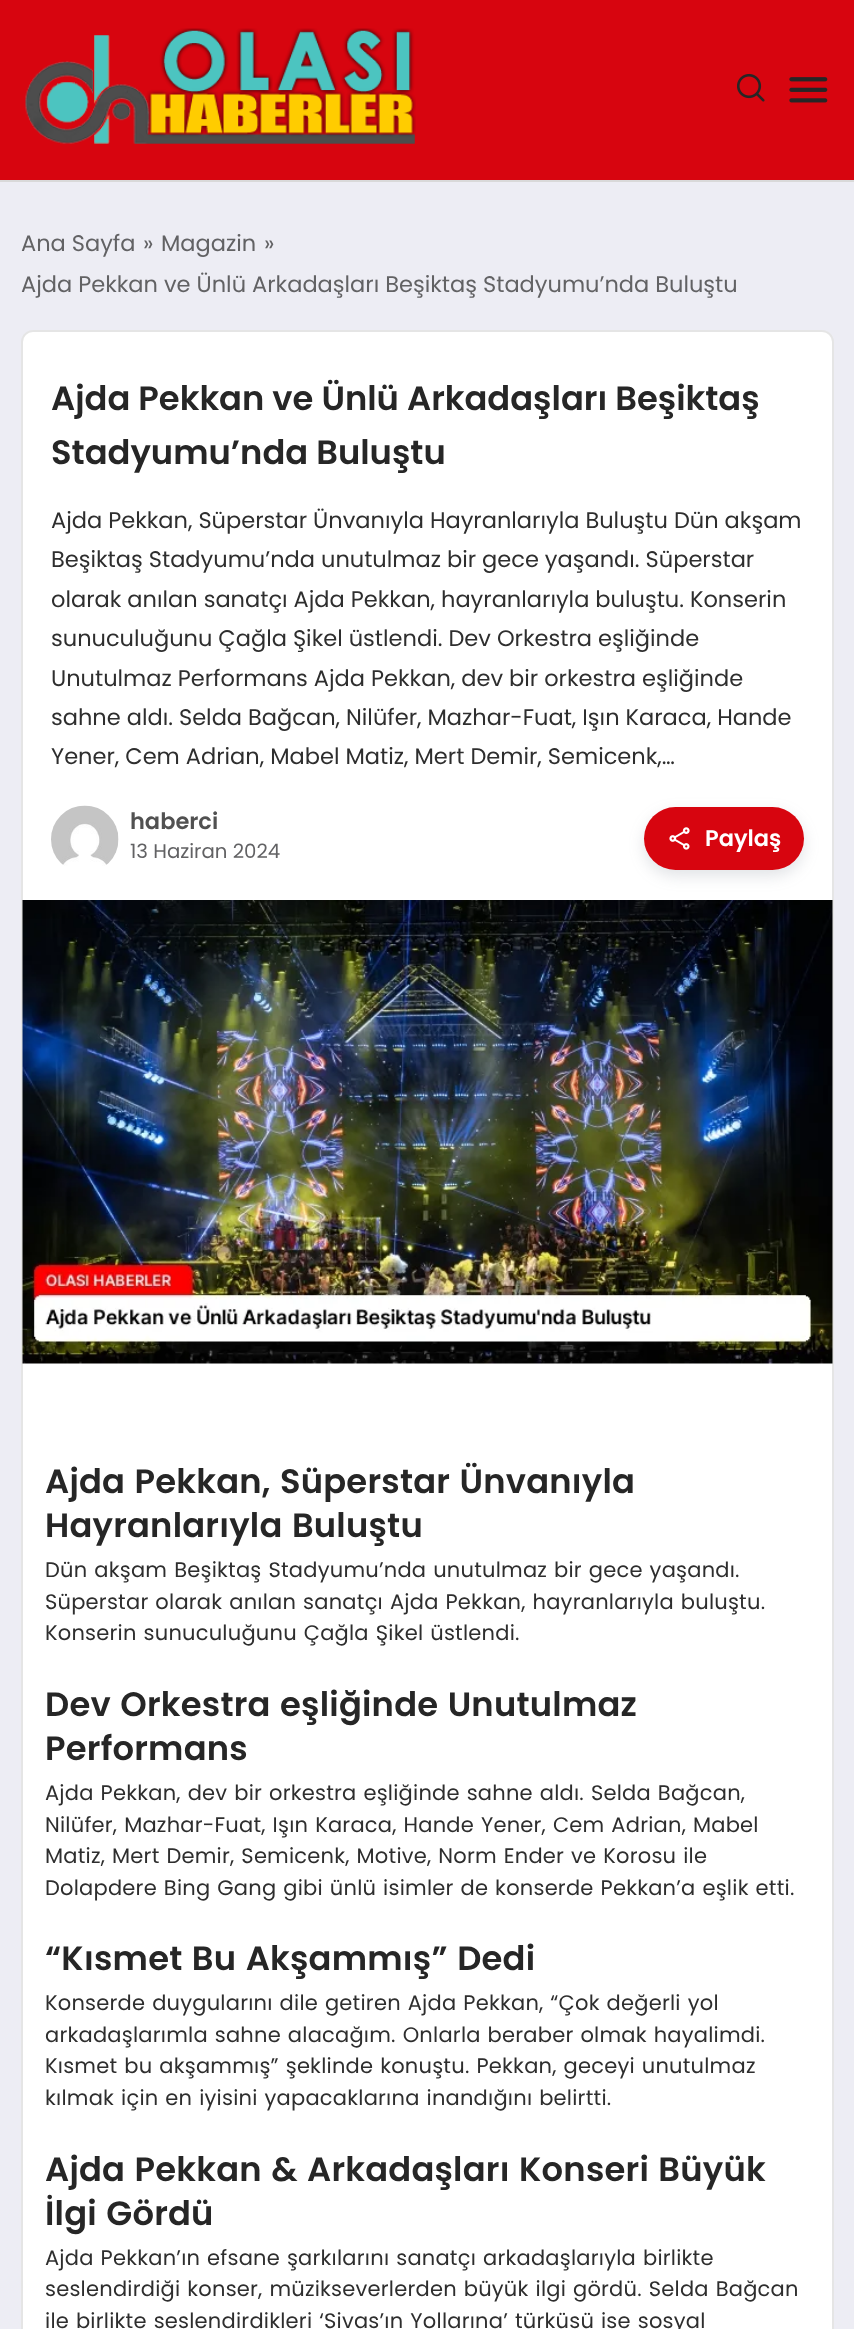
<svg xmlns="http://www.w3.org/2000/svg" width="854" height="2329" viewBox="0 0 854 2329">
  <rect width="100%" height="100%" fill="#ededf4"/>
  <path d="M0 0h854v180H0z" fill="#d7050f"/>
  <image x="25" y="28" width="391" height="116" href="img/1.png"/>
  <image x="737" y="73" width="28" height="29" href="img/2.png"/>
  <image x="789" y="77" width="39" height="26" href="img/3.png"/>
  <path d="M0 180h854v2H0z" fill="#d9d9d9"/>
  <rect x="21" y="330" width="813" height="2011" rx="12" fill="#fff"/>
  <rect x="22" y="331" width="811" height="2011" rx="11" fill="none" stroke="#0000001a" stroke-width="2"/>
  <image x="51" y="805" width="68" height="61" href="img/4.png"/>
  <rect x="644" y="813" width="160" height="63" rx="31.5" fill="#6b728033" filter="blur(7.5px)"/>
  <rect x="644" y="807" width="160" height="63" rx="31.5" fill="#d7050f"/>
  <image x="669" y="827" width="21" height="23" href="img/5.png"/>
  <image x="22" y="900" width="811" height="464" href="img/6.png"/>
  <g font-family="Poppins" font-size="22.5" fill="#626264">
    <text x="21" y="251">Ana Sayfa</text>
    <text x="143" y="251">»</text>
    <text x="161" y="251">Magazin</text>
    <text x="264" y="251">»</text>
    <text x="21" y="292">Ajda Pekkan ve Ünlü Arkadaşları Beşiktaş Stadyumu’nda Buluştu</text>
  </g>
  <g font-family="Poppins" font-size="33.75" font-weight="600" fill="#262626">
    <text x="51" y="410">Ajda Pekkan ve Ünlü Arkadaşları Beşiktaş</text>
    <text x="51" y="464">Stadyumu’nda Buluştu</text>
  </g>
  <g font-family="Poppins" font-size="22.5" fill="#2e2e2e">
    <text x="51" y="528">Ajda Pekkan, Süperstar Ünvanıyla Hayranlarıyla Buluştu Dün akşam</text>
    <text x="51" y="567">Beşiktaş Stadyumu’nda unutulmaz bir gece yaşandı. Süperstar</text>
    <text x="51" y="607">olarak anılan sanatçı Ajda Pekkan, hayranlarıyla buluştu. Konserin</text>
    <text x="51" y="646">sunuculuğunu Çağla Şikel üstlendi. Dev Orkestra eşliğinde</text>
    <text x="51" y="686">Unutulmaz Performans Ajda Pekkan, dev bir orkestra eşliğinde</text>
    <text x="51" y="725">sahne aldı. Selda Bağcan, Nilüfer, Mazhar-Fuat, Işın Karaca, Hande</text>
    <text x="51" y="764">Yener, Cem Adrian, Mabel Matiz, Mert Demir, Semicenk,…</text>
  </g>
  <text x="130" y="829" font-family="Poppins" font-size="22.5" font-weight="600" fill="#515151">haberci</text>
  <text x="130" y="858" font-family="Poppins" font-size="19.75" fill="#626264">13 Haziran 2024</text>
  <text x="705" y="846" font-family="Poppins" font-size="22.5" font-weight="600" fill="#fff">Paylaş</text>
  <g font-family="Poppins" font-size="33.75" font-weight="600" letter-spacing="0.22" fill="#262626">
    <text x="45" y="1493" word-spacing="1.1">Ajda Pekkan, Süperstar Ünvanıyla</text>
    <text x="45" y="1537" word-spacing="1.1">Hayranlarıyla Buluştu</text>
  </g>
  <g font-family="Poppins" font-size="21" letter-spacing="0.22" fill="#2e2e2e">
    <text x="45" y="1577" word-spacing="1.1">Dün akşam Beşiktaş Stadyumu’nda unutulmaz bir gece yaşandı.</text>
    <text x="45" y="1609" word-spacing="1.1">Süperstar olarak anılan sanatçı Ajda Pekkan, hayranlarıyla buluştu.</text>
    <text x="45" y="1640" word-spacing="1.1">Konserin sunuculuğunu Çağla Şikel üstlendi.</text>
  </g>
  <g font-family="Poppins" font-size="33.75" font-weight="600" letter-spacing="0.22" fill="#262626">
    <text x="45" y="1716" word-spacing="1.1">Dev Orkestra eşliğinde Unutulmaz</text>
    <text x="45" y="1760">Performans</text>
  </g>
  <g font-family="Poppins" font-size="21" letter-spacing="0.22" fill="#2e2e2e">
    <text x="45" y="1800" word-spacing="1.1">Ajda Pekkan, dev bir orkestra eşliğinde sahne aldı. Selda Bağcan,</text>
    <text x="45" y="1832" word-spacing="1.1">Nilüfer, Mazhar-Fuat, Işın Karaca, Hande Yener, Cem Adrian, Mabel</text>
    <text x="45" y="1863" word-spacing="1.1">Matiz, Mert Demir, Semicenk, Motive, Norm Ender ve Korosu ile</text>
    <text x="45" y="1895" word-spacing="1.1">Dolapdere Bing Gang gibi ünlü isimler de konserde Pekkan’a eşlik etti.</text>
  </g>
  <text x="45" y="1970" word-spacing="1.1" font-family="Poppins" font-size="33.75" font-weight="600" letter-spacing="0.22" fill="#262626">“Kısmet Bu Akşammış” Dedi</text>
  <g font-family="Poppins" font-size="21" letter-spacing="0.22" fill="#2e2e2e">
    <text x="45" y="2010" word-spacing="1.1">Konserde duygularını dile getiren Ajda Pekkan, “Çok değerli yol</text>
    <text x="45" y="2042" word-spacing="1.1">arkadaşlarımla sahne alacağım. Onlarla beraber olmak hayalimdi.</text>
    <text x="45" y="2073" word-spacing="1.1">Kısmet bu akşammış” şeklinde konuştu. Pekkan, geceyi unutulmaz</text>
    <text x="45" y="2105" word-spacing="1.1">kılmak için en iyisini yapacaklarına inandığını belirtti.</text>
  </g>
  <g font-family="Poppins" font-size="33.75" font-weight="600" letter-spacing="0.22" fill="#262626">
    <text x="45" y="2181" word-spacing="1.1">Ajda Pekkan &amp; Arkadaşları Konseri Büyük</text>
    <text x="45" y="2225" word-spacing="1.1">İlgi Gördü</text>
  </g>
  <g font-family="Poppins" font-size="21" letter-spacing="0.22" fill="#2e2e2e">
    <text x="45" y="2265" word-spacing="1.1">Ajda Pekkan’ın efsane şarkılarını sanatçı arkadaşlarıyla birlikte</text>
    <text x="45" y="2296" word-spacing="1.1">seslendirdiği konser, müzikseverlerden büyük ilgi gördü. Selda Bağcan</text>
    <text x="45" y="2328" word-spacing="1.1">ile birlikte seslendirdikleri ‘Sivas’ın Yollarına’ türküsü ise sosyal</text>
  </g>
</svg>
